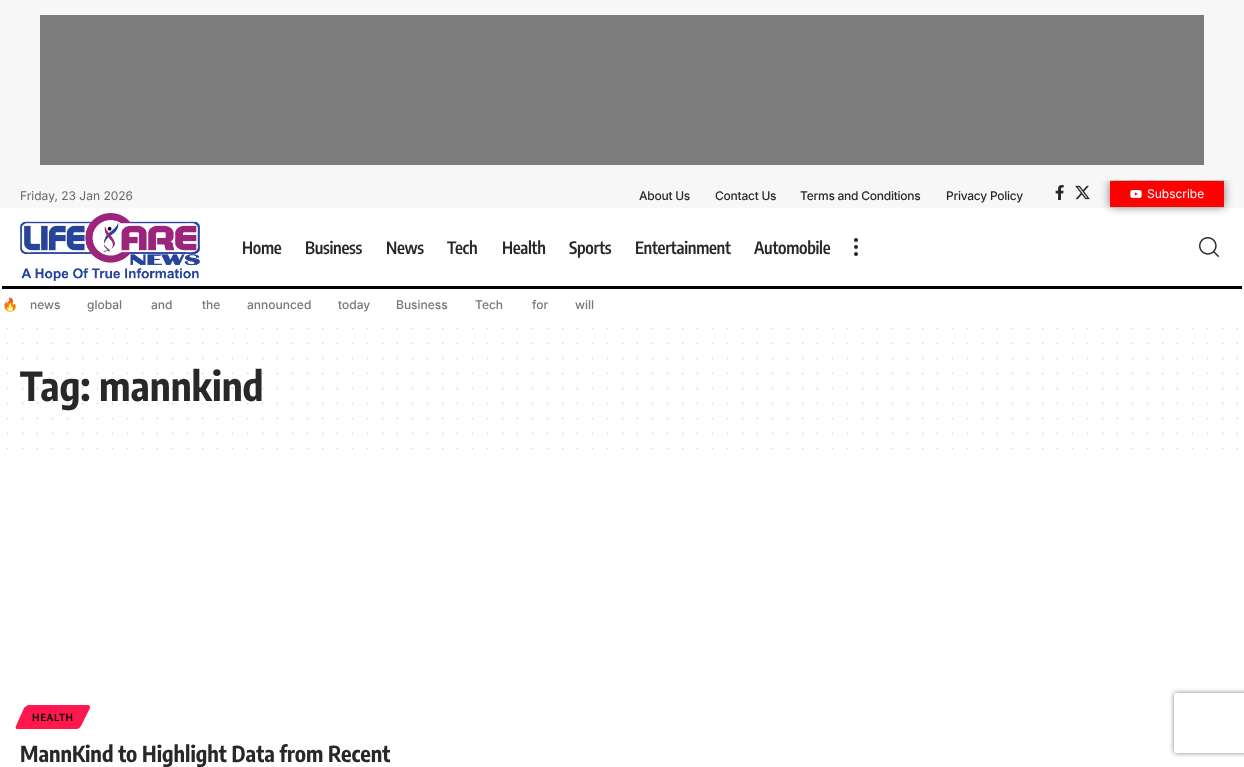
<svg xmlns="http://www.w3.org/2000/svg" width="1244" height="767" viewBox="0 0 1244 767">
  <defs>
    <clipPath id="clip1"><path d="M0 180h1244v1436H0z"/></clipPath>
    <clipPath id="clip2"><path d="M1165 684H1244V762H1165ZM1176 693H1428C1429 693 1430 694 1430 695V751C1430 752 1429 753 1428 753H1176C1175 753 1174 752 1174 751V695C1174 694 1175 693 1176 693Z" clip-rule="evenodd"/></clipPath>
  </defs>
  <rect width="100%" height="100%" fill="#fff"/>
  <path d="M0 0h1244v208H0z" fill="#f7f7f7"/>
  <path d="M40 15h1164v150H40z" fill="#7c7c7c"/>
  <image x="1055" y="185" width="9" height="15" href="img/1.png"/>
  <image x="1075" y="185" width="15" height="15" href="img/2.png"/>
  <g clip-path="url(#clip1)">
    <path d="M1110 181h114v26H1110z" fill="#00000080" filter="blur(5px)"/>
  </g>
  <path d="M1110 181h114v26H1110z" fill="#f00"/>
  <image x="1130" y="190" width="12" height="8" href="img/3.png"/>
  <image x="20" y="213" width="180" height="68" href="img/4.png"/>
  <circle cx="856" cy="240" r="2" fill="#282828"/>
  <circle cx="856" cy="247" r="2" fill="#282828"/>
  <circle cx="856" cy="254" r="2" fill="#282828"/>
  <image x="1199" y="237" width="20" height="20" href="img/5.png"/>
  <path d="M2 286h1240v3H2z" fill="#000"/>
  <path d="M7.5 328.5H1237.7" fill="none" stroke="#dfdfdf" stroke-width="2" stroke-linecap="round" stroke-dasharray="0 15"/>
  <path d="M7.5 343.5H1237.7" fill="none" stroke="#dfdfdf" stroke-width="2" stroke-linecap="round" stroke-dasharray="0 15"/>
  <path d="M7.5 358.5H1237.7" fill="none" stroke="#dfdfdf" stroke-width="2" stroke-linecap="round" stroke-dasharray="0 15"/>
  <path d="M7.5 418.5H1237.7" fill="none" stroke="#dfdfdf" stroke-width="2" stroke-linecap="round" stroke-dasharray="0 15"/>
  <path d="M7.5 433.5H1237.7" fill="none" stroke="#dfdfdf" stroke-width="2" stroke-linecap="round" stroke-dasharray="0 15"/>
  <path d="M7.5 448.5H1237.7" fill="none" stroke="#dfdfdf" stroke-width="2" stroke-linecap="round" stroke-dasharray="0 15"/>
  <path d="M29 705H88C90 705 90 707 90 708L81 726C80 728 78 729 77 729H17C16 729 15 728 16 726L24 708C25 707 27 705 29 705Z" fill="#ff184e"/>
  <g clip-path="url(#clip2)">
    <rect x="1174" y="693" width="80" height="60" rx="2" fill="#808080" filter="blur(2.5px)"/>
  </g>
  <text x="20" y="200" font-family="Inter" font-size="12" fill="#666">Friday, 23 Jan 2026</text>
  <g font-family="Inter" font-size="12" font-weight="500" letter-spacing="-0.25" fill="#282828">
    <text x="639" y="200">About Us</text>
    <text x="715" y="200">Contact Us</text>
    <text x="800" y="200">Terms and Conditions</text>
    <text x="946" y="200">Privacy Policy</text>
  </g>
  <text x="1147" y="198" font-family="Inter" font-size="12" fill="#fff">Subscribe</text>
  <g font-family="Encode Sans Condensed" font-size="17" font-weight="600" letter-spacing="-0.3" fill="#282828">
    <text x="242" y="254">Home</text>
    <text x="305" y="254">Business</text>
    <text x="386" y="254">News</text>
    <text x="447" y="254">Tech</text>
    <text x="502" y="254">Health</text>
    <text x="569" y="254">Sports</text>
    <text x="635" y="254">Entertainment</text>
    <text x="754" y="254">Automobile</text>
  </g>
  <text x="2" y="309" font-family="Noto Color Emoji" font-size="13" fill="#666">🔥</text>
  <g font-family="Inter" font-size="12" font-weight="500" fill="#777">
    <text x="30" y="309">news</text>
    <text x="87" y="309">global</text>
    <text x="151" y="309">and</text>
    <text x="202" y="309">the</text>
    <text x="247" y="309">announced</text>
    <text x="338" y="309">today</text>
    <text x="396" y="309">Business</text>
    <text x="475" y="309">Tech</text>
    <text x="532" y="309">for</text>
    <text x="575" y="309">will</text>
  </g>
  <text x="20" y="401" font-family="Encode Sans Condensed" font-size="40" font-weight="bold" fill="#282828">Tag: mannkind</text>
  <path d="M7.5 403.5H1237.7" fill="none" stroke="#dfdfdf" stroke-width="2" stroke-linecap="round" stroke-dasharray="0 15"/>
  <path d="M7.5 388.5H1237.7" fill="none" stroke="#28282826" stroke-width="2" stroke-linecap="round" stroke-dasharray="0 15"/>
  <path d="M7.5 373.5H1237.7" fill="none" stroke="#28282826" stroke-width="2" stroke-linecap="round" stroke-dasharray="0 15"/>
  <text x="32" y="721" font-family="Oxygen" font-size="10" font-weight="bold" letter-spacing="0.75" fill="#000">HEALTH</text>
  <text x="20" y="762" font-family="Encode Sans Condensed" font-size="22" font-weight="bold" fill="#282828">MannKind to Highlight Data from Recent</text>
</svg>
